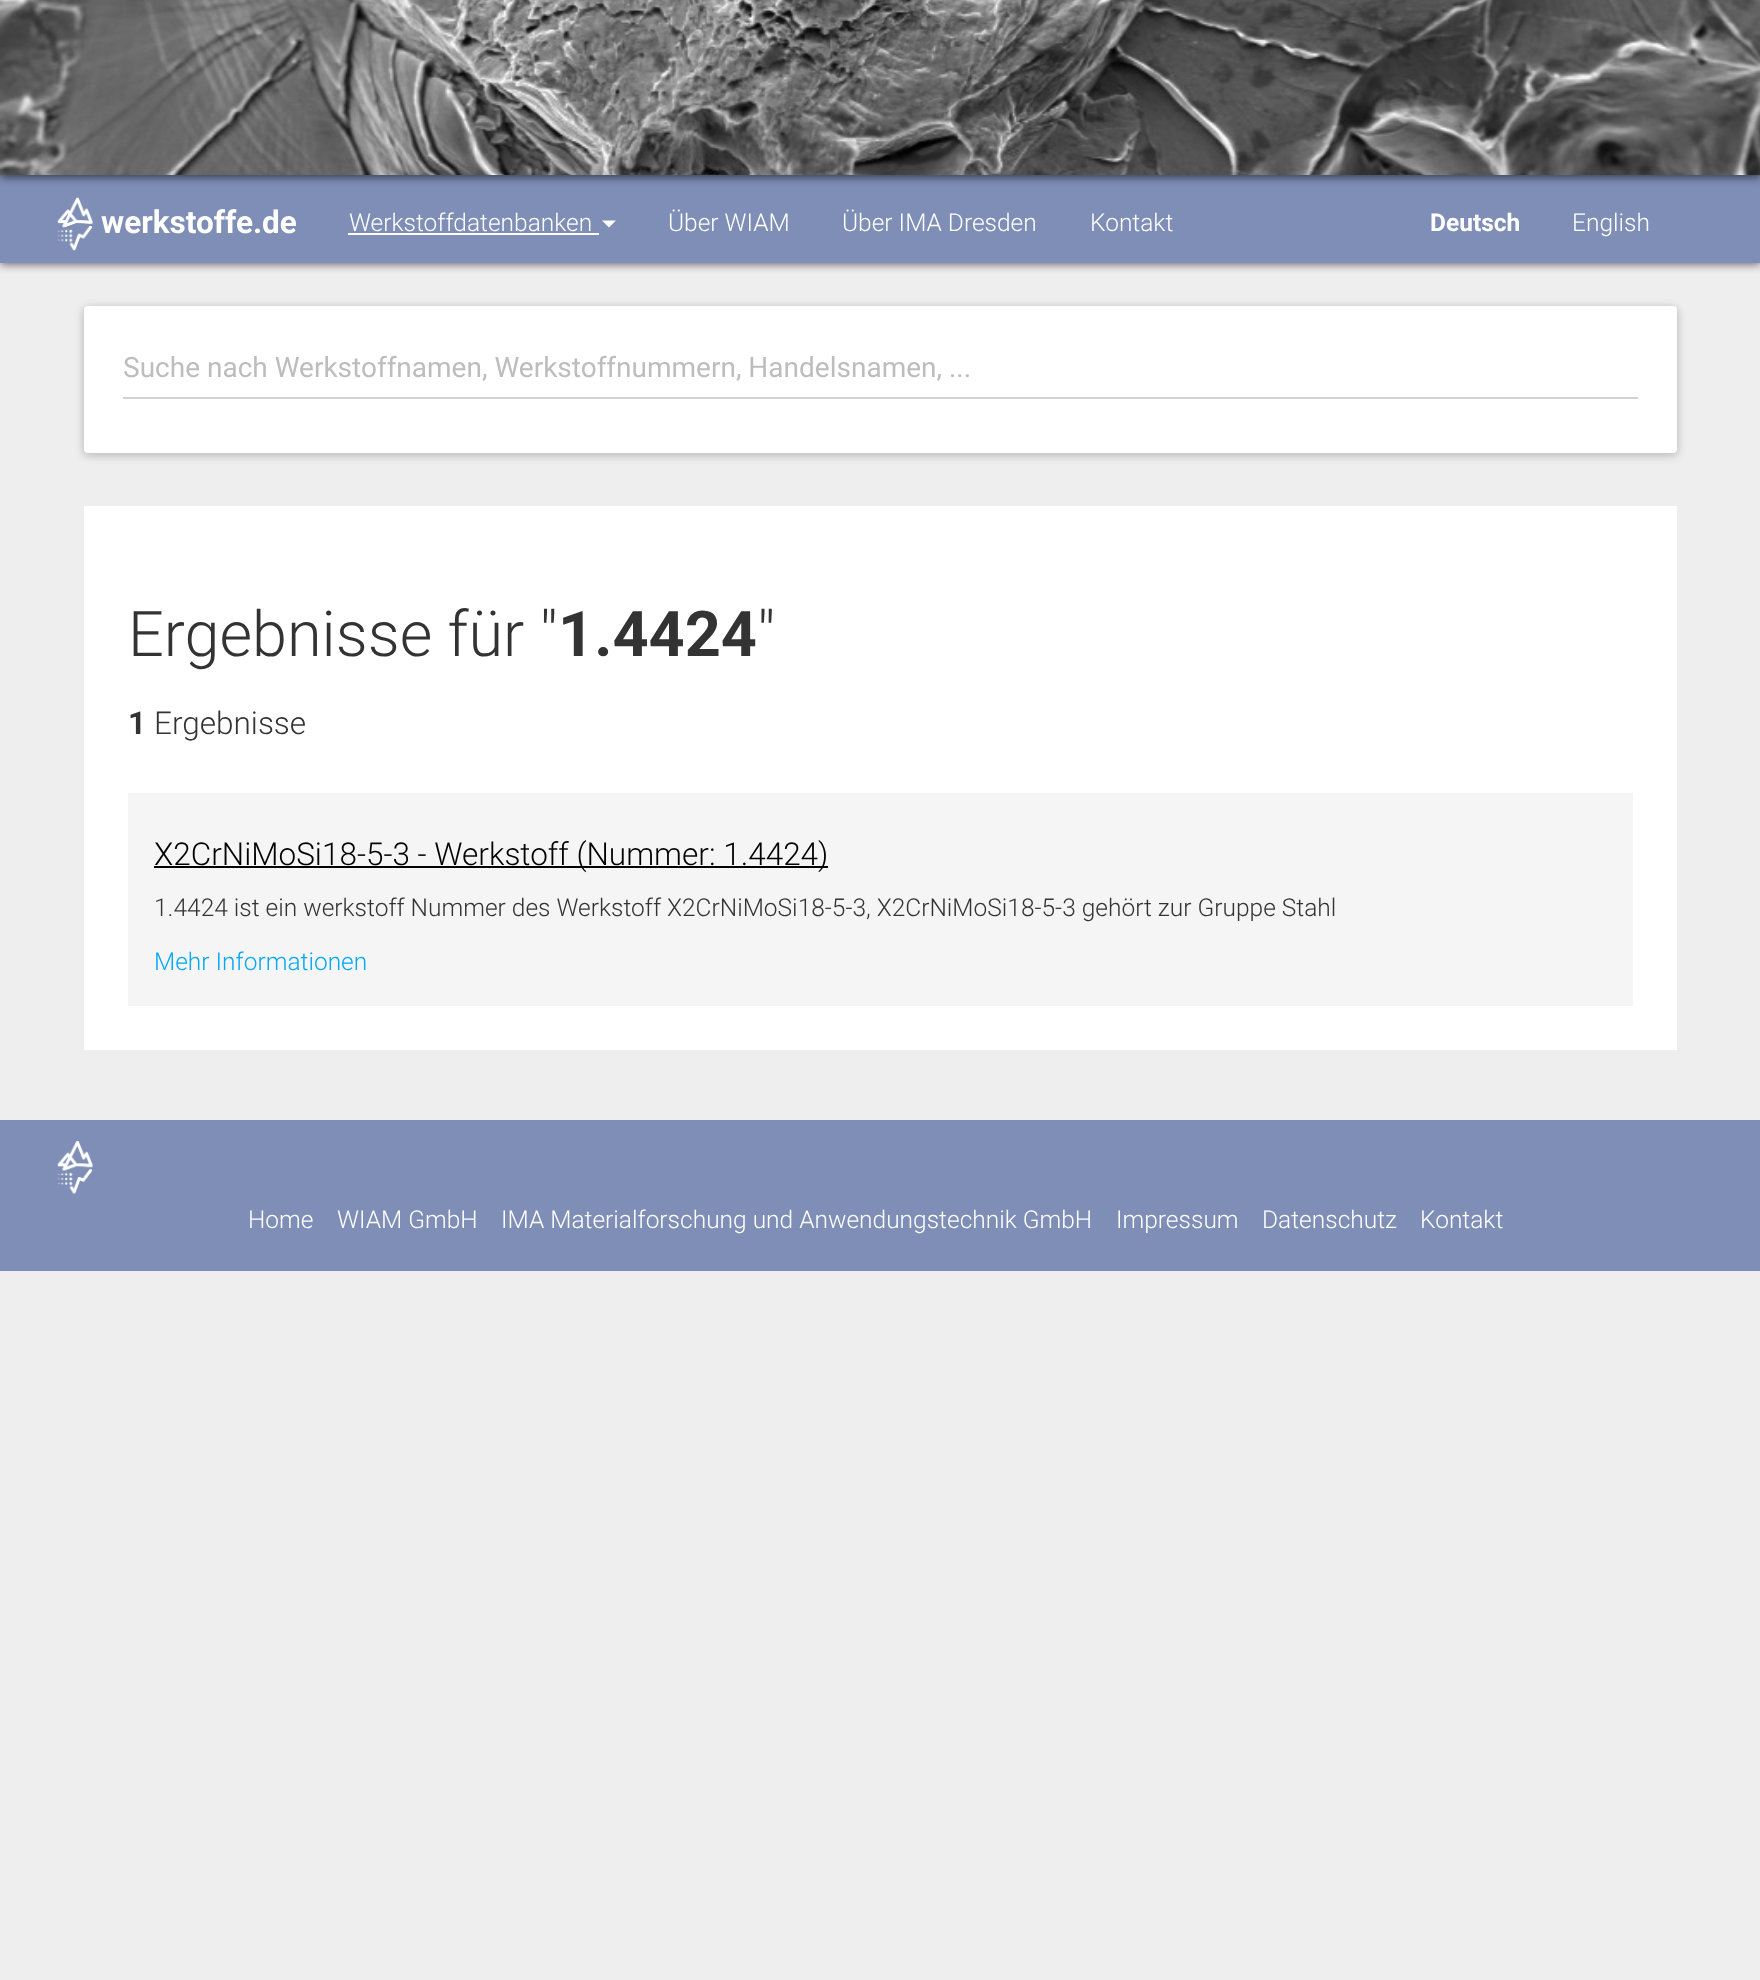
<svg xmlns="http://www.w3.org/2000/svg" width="1760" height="1980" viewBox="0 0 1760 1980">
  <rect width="100%" height="100%" fill="#eee"/>
  <path d="M0 2h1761v262H0z" fill="#0000009e" filter="blur(5px)"/>
  <path d="M0 175h1760v88H0z" fill="#7e8eb6"/>
  <path d="M0 2h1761v175H0z" fill="#0000009e" filter="blur(5px)"/>
  <image x="0" y="0" width="1760" height="175" href="img/1.png"/>
  <image x="57" y="197" width="36" height="54" href="img/2.png"/>
  <path d="M348 233h251v2H348z" fill="#fff"/>
  <path d="M602 220.5H616L609 227.5Z" fill="#fff"/>
  <rect x="84" y="308" width="1593" height="147" rx="4" fill="#0000001f" filter="blur(5px)"/>
  <rect x="84" y="308" width="1593" height="147" rx="4" fill="#0000001f" filter="blur(5px)"/>
  <rect x="84" y="306" width="1593" height="147" rx="4" fill="#fff"/>
  <path d="M123 397h1515v2H123z" fill="#d2d2d2"/>
  <path d="M84 506h1593v544H84z" fill="#fff"/>
  <path d="M128 793h1505v213H128z" fill="#f5f5f5"/>
  <path d="M154 866h674v2H154z" fill="#000"/>
  <path d="M0 1120h1760v151H0z" fill="#7e8eb6"/>
  <image x="57" y="1141" width="36" height="53" href="img/3.png"/>
  <text x="101" y="233" font-family="Roboto" font-size="31.5" font-weight="bold" fill="#fff">werkstoffe.de</text>
  <g font-family="Roboto" font-size="24.5" font-weight="300" fill="#fff">
    <text x="349" y="231">Werkstoffdatenbanken</text>
    <text x="668" y="231">Über WIAM</text>
    <text x="842" y="231">Über IMA Dresden</text>
    <text x="1090" y="231">Kontakt</text>
  </g>
  <text x="1430" y="231" font-family="Roboto" font-size="24.5" font-weight="bold" fill="#fff">Deutsch</text>
  <text x="1572" y="231" font-family="Roboto" font-size="24.5" font-weight="300" fill="#fff">English</text>
  <text x="123" y="377" font-family="Roboto" font-size="28" fill="#bdbdbd">Suche nach Werkstoffnamen, Werkstoffnummern, Handelsnamen, ...</text>
  <text x="128" y="656" font-family="Roboto" font-size="63" font-weight="300" fill="#333">Ergebnisse für "</text>
  <text x="558" y="656" font-family="Roboto" font-size="63" font-weight="bold" fill="#333">1.4424</text>
  <text x="757" y="656" font-family="Roboto" font-size="63" font-weight="300" fill="#333">"</text>
  <text x="128" y="734" font-family="Roboto" font-size="31.5" font-weight="bold" fill="#333">1</text>
  <text x="154" y="734" font-family="Roboto" font-size="31.5" font-weight="300" fill="#333">Ergebnisse</text>
  <text x="154" y="865" font-family="Roboto" font-size="31.5" font-weight="300" fill="#000">X2CrNiMoSi18-5-3 - Werkstoff (Nummer: 1.4424)</text>
  <text x="154" y="916" font-family="Roboto" font-size="24.5" font-weight="300" fill="#333">1.4424 ist ein werkstoff Nummer des Werkstoff X2CrNiMoSi18-5-3, X2CrNiMoSi18-5-3 gehört zur Gruppe Stahl</text>
  <text x="154" y="970" font-family="Roboto" font-size="24.5" font-weight="300" fill="#03a9f4">Mehr Informationen</text>
  <g font-family="Roboto" font-size="24.5" font-weight="300" fill="#fff">
    <text x="248" y="1228">Home</text>
    <text x="337" y="1228">WIAM GmbH</text>
    <text x="501" y="1228">IMA Materialforschung und Anwendungstechnik GmbH</text>
    <text x="1116" y="1228">Impressum</text>
    <text x="1262" y="1228">Datenschutz</text>
    <text x="1420" y="1228">Kontakt</text>
  </g>
</svg>
